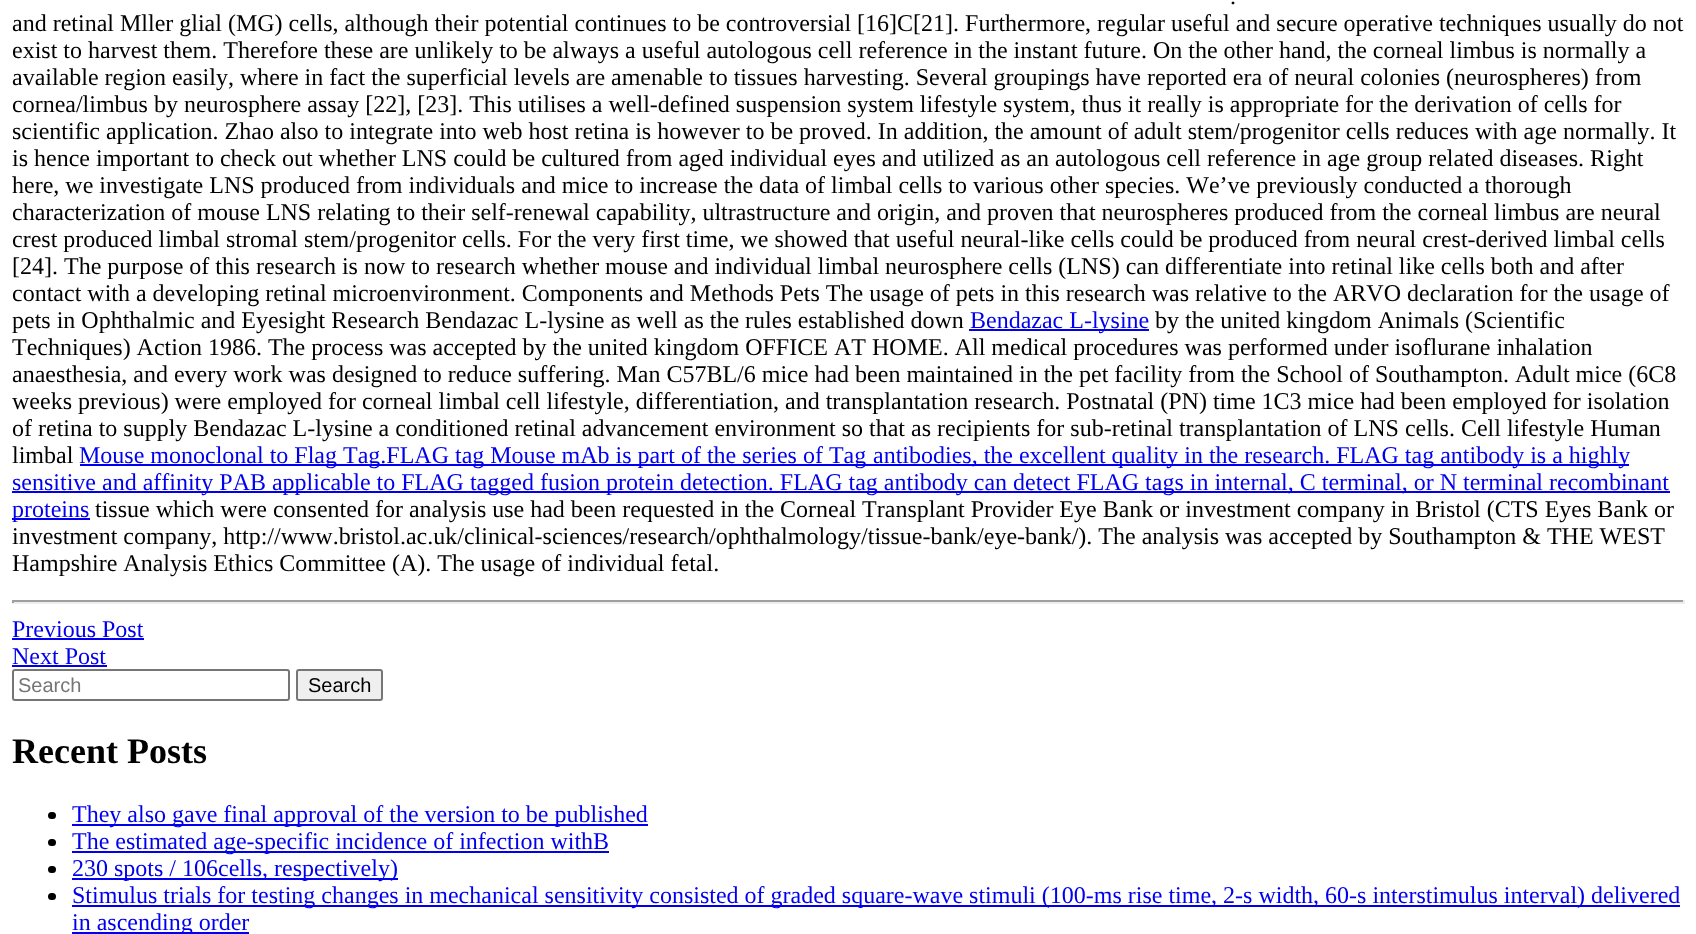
<svg xmlns="http://www.w3.org/2000/svg" width="1696" height="934" viewBox="0 0 1696 934">
  <style>*{font-kerning:none!important;font-variant-ligatures:none!important}</style>
  <rect width="100%" height="100%" fill="#fff"/>
  <path d="M969 329h180v2H969z" fill="#00e"/>
  <path d="M80 464h1549v2H80z" fill="#00e"/>
  <path d="M12 491h1658v2H12z" fill="#00e"/>
  <path d="M12 518h78v2H12z" fill="#00e"/>
  <path d="M12 600h1673v2H12z" fill="#9f9f9f"/>
  <path d="M1683 600h2v3H1683z" fill="#eee"/>
  <path d="M12 602h1673v2H12z" fill="#eee"/>
  <path d="M12 600h2v3H12z" fill="#9f9f9f"/>
  <path d="M12 638h132v2H12z" fill="#00e"/>
  <path d="M12 665h95v2H12z" fill="#00e"/>
  <rect x="13" y="670" width="276" height="30" rx="2" fill="none" stroke="#767676" stroke-width="2"/>
  <rect x="297" y="670" width="85" height="30" rx="2" fill="#efefef" stroke="#767676" stroke-width="2"/>
  <rect x="48" y="812" width="8" height="7" rx="3.5" fill="#000"/>
  <path d="M72 824h576v2H72z" fill="#00e"/>
  <rect x="48" y="839" width="8" height="7" rx="3.5" fill="#000"/>
  <path d="M72 851h537v2H72z" fill="#00e"/>
  <rect x="48" y="866" width="8" height="7" rx="3.5" fill="#000"/>
  <path d="M72 878h326v2H72z" fill="#00e"/>
  <rect x="48" y="893" width="8" height="7" rx="3.5" fill="#000"/>
  <path d="M72 905h1608v2H72z" fill="#00e"/>
  <path d="M72 932h177v2H72z" fill="#00e"/>
  <g font-family="Liberation Serif" font-size="24" fill="#000">
    <text x="1230" y="4">.</text>
    <text x="12" y="31">and retinal Mller glial (MG) cells, although their potential continues to be controversial [16]C[21]. Furthermore, regular useful and secure operative techniques usually do not</text>
    <text x="12" y="58">exist to harvest them. Therefore these are unlikely to be always a useful autologous cell reference in the instant future. On the other hand, the corneal limbus is normally a</text>
    <text x="12" y="85">available region easily, where in fact the superficial levels are amenable to tissues harvesting. Several groupings have reported era of neural colonies (neurospheres) from</text>
    <text x="12" y="112">cornea/limbus by neurosphere assay [22], [23]. This utilises a well-defined suspension system lifestyle system, thus it really is appropriate for the derivation of cells for</text>
    <text x="12" y="139">scientific application. Zhao also to integrate into web host retina is however to be proved. In addition, the amount of adult stem/progenitor cells reduces with age normally. It</text>
    <text x="12" y="166">is hence important to check out whether LNS could be cultured from aged individual eyes and utilized as an autologous cell reference in age group related diseases. Right</text>
    <text x="12" y="193">here, we investigate LNS produced from individuals and mice to increase the data of limbal cells to various other species. We’ve previously conducted a thorough</text>
    <text x="12" y="220">characterization of mouse LNS relating to their self-renewal capability, ultrastructure and origin, and proven that neurospheres produced from the corneal limbus are neural</text>
    <text x="12" y="247">crest produced limbal stromal stem/progenitor cells. For the very first time, we showed that useful neural-like cells could be produced from neural crest-derived limbal cells</text>
    <text x="12" y="274">[24]. The purpose of this research is now to research whether mouse and individual limbal neurosphere cells (LNS) can differentiate into retinal like cells both and after</text>
    <text x="12" y="301">contact with a developing retinal microenvironment. Components and Methods Pets The usage of pets in this research was relative to the ARVO declaration for the usage of</text>
    <text x="12" y="328">pets in Ophthalmic and Eyesight Research Bendazac L-lysine as well as the rules established down</text>
  </g>
  <text x="970" y="328" font-family="Liberation Serif" font-size="24" fill="#00e">Bendazac L-lysine</text>
  <g font-family="Liberation Serif" font-size="24" fill="#000">
    <text x="1155" y="328">by the united kingdom Animals (Scientific</text>
    <text x="12" y="355">Techniques) Action 1986. The process was accepted by the united kingdom OFFICE</text>
    <text x="834" y="355">AT HOME. All medical procedures was performed under isoflurane inhalation</text>
    <text x="12" y="382">anaesthesia, and every work was designed to reduce suffering. Man C57BL/6 mice had been maintained in the pet facility from the School of Southampton. Adult mice (6C8</text>
    <text x="12" y="409">weeks previous) were employed for corneal limbal cell lifestyle, differentiation, and transplantation research. Postnatal (PN) time 1C3 mice had been employed for isolation</text>
    <text x="12" y="436">of retina to supply Bendazac L-lysine a conditioned retinal advancement environment so that as recipients for sub-retinal transplantation of LNS cells. Cell lifestyle Human</text>
    <text x="12" y="463">limbal</text>
  </g>
  <g font-family="Liberation Serif" font-size="24" fill="#00e">
    <text x="79" y="463">Mouse monoclonal to Flag Tag.FLAG tag Mouse mAb is part of the series of Tag</text>
    <text x="873" y="463">antibodies, the excellent quality in the research. FLAG tag antibody is a highly</text>
    <text x="12" y="490">sensitive and affinity PAB applicable to FLAG tagged fusion protein detection. FLAG tag antibody can detect FLAG tags in internal, C terminal, or N terminal recombinant</text>
    <text x="12" y="517">proteins</text>
  </g>
  <g font-family="Liberation Serif" font-size="24" fill="#000">
    <text x="95" y="517">tissue which were consented for analysis use had been requested in the Corneal Transplant Provider Eye Bank or investment company in Bristol (CTS Eyes Bank or</text>
    <text x="12" y="544">investment company, http://www.bristol.ac.uk/clinical-sciences/research/ophthalmology/tissue-bank/eye-bank/). The analysis was accepted by Southampton &amp; THE WEST</text>
    <text x="12" y="571">Hampshire Analysis Ethics Committee (A). The usage of individual fetal.</text>
  </g>
  <g font-family="Liberation Serif" font-size="24" fill="#00e">
    <text x="12" y="637">Previous Post</text>
    <text x="12" y="664">Next Post</text>
  </g>
  <text x="18" y="692" font-family="Liberation Sans" font-size="20" fill="#757575">Search</text>
  <text x="308" y="692" font-family="Liberation Sans" font-size="20" fill="#000">Search</text>
  <text x="12" y="763" font-family="Liberation Serif" font-size="36" font-weight="bold" fill="#000">Recent Posts</text>
  <g font-family="Liberation Serif" font-size="24" fill="#00e">
    <text x="72" y="822">They also gave final approval of the version to be published</text>
    <text x="72" y="849">The estimated age-specific incidence of infection withB</text>
    <text x="72" y="876">230 spots / 106cells, respectively)</text>
    <text x="72" y="903">Stimulus trials for testing changes in mechanical sensitivity consisted of graded square-wave stimuli (100-ms rise time, 2-s width, 60-s interstimulus interval) delivered</text>
    <text x="72" y="930">in ascending order</text>
  </g>
</svg>
